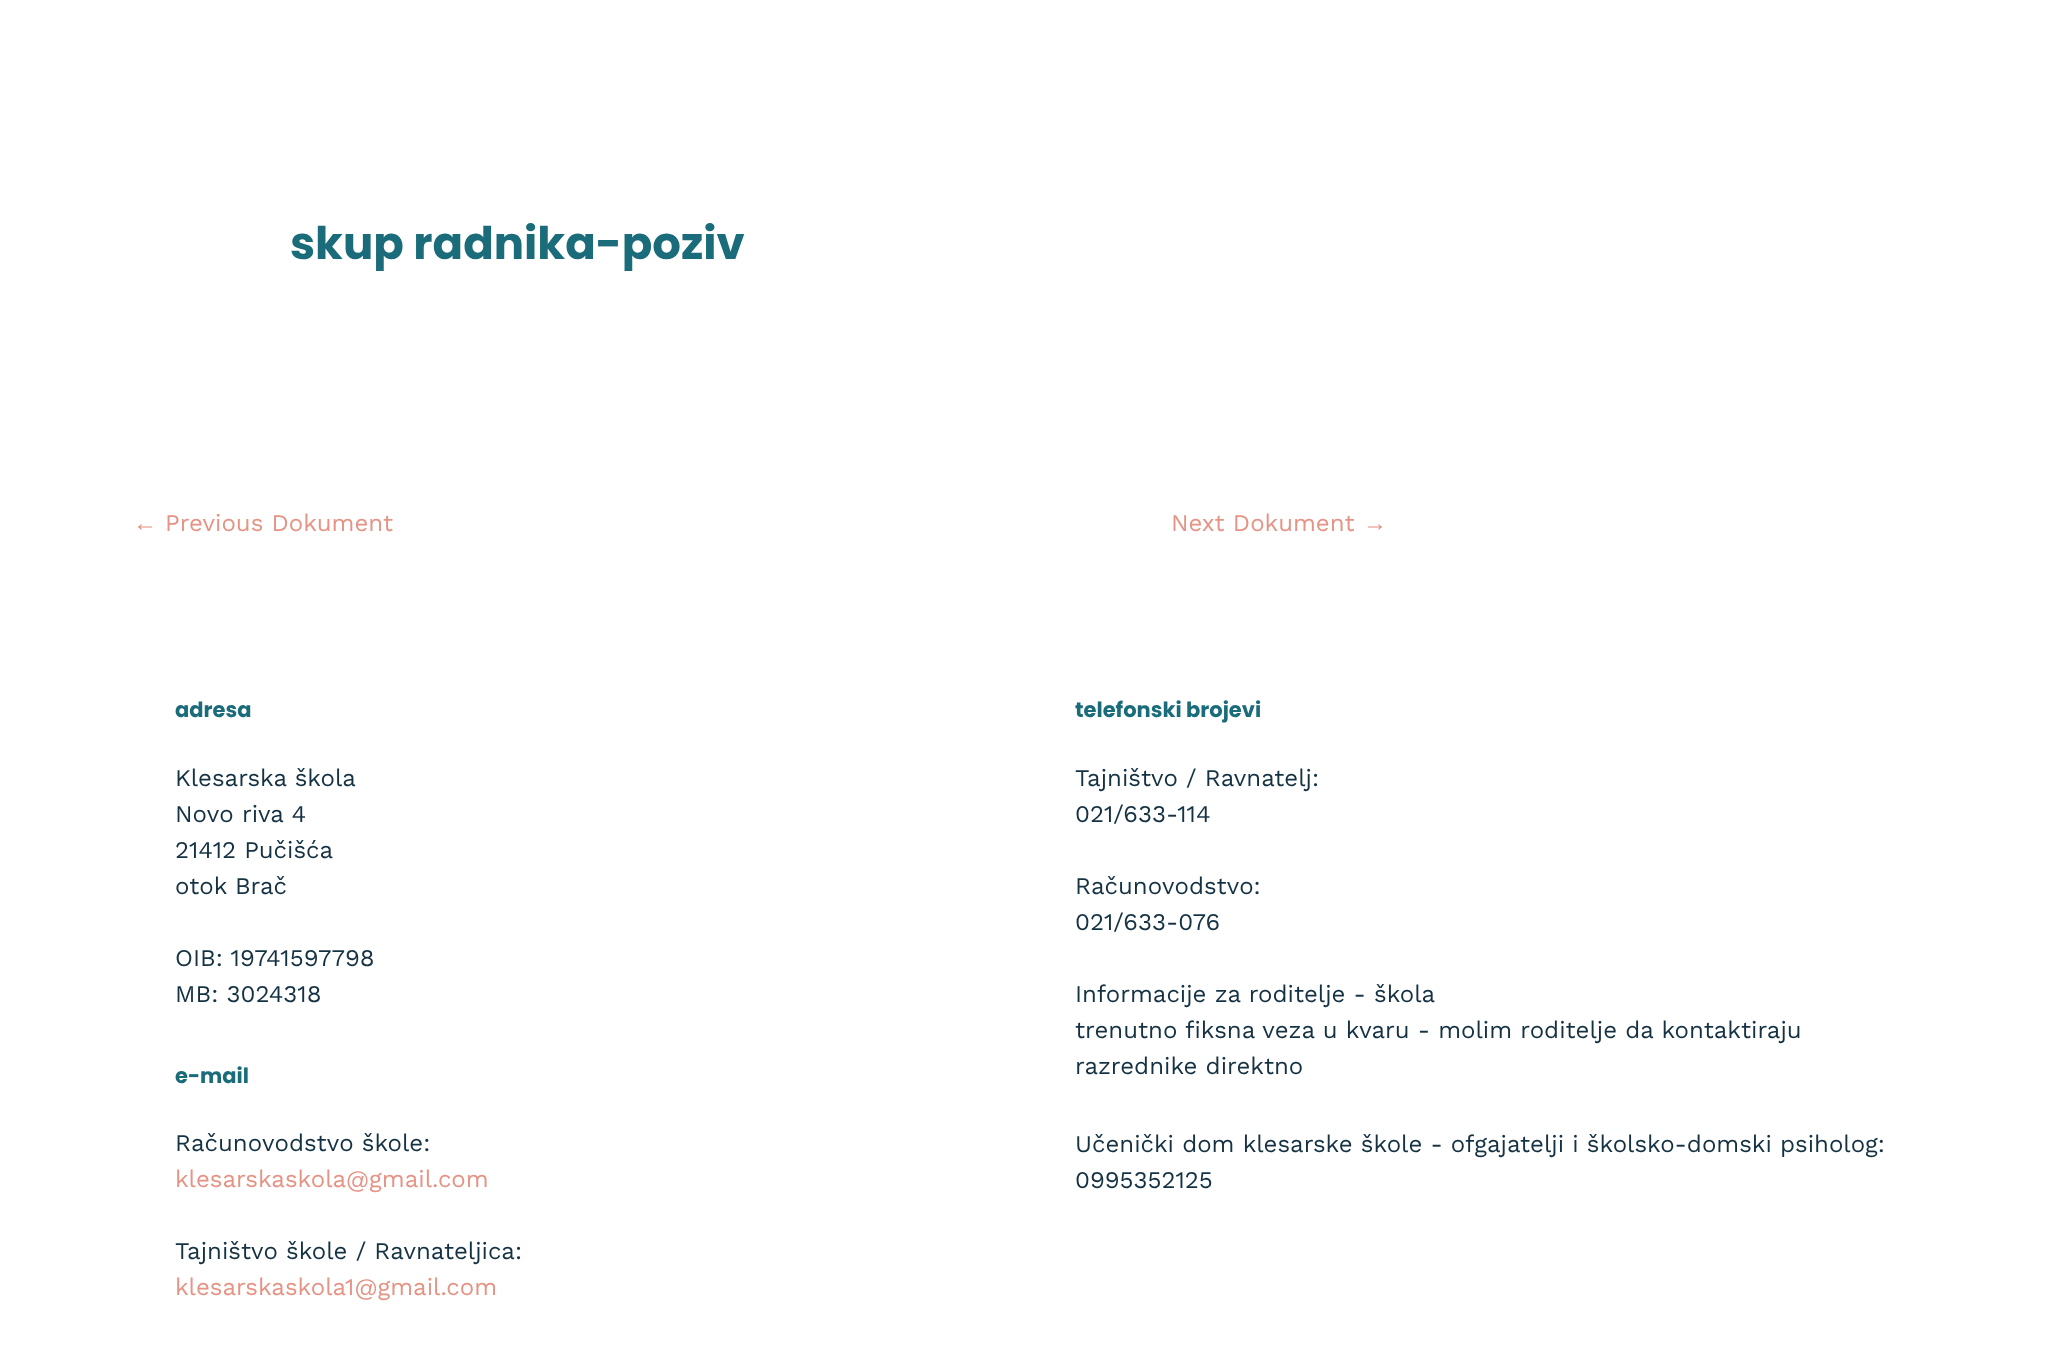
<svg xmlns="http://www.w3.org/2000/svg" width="2059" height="1369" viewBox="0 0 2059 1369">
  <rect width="100%" height="100%" fill="#fff"/>
  <text x="290" y="259" font-family="Poppins" font-size="45" font-weight="bold" fill="#1a6c7a">skup radnika-poziv</text>
  <text x="133" y="531" font-family="Liberation Sans" font-size="24" fill="#e59385">←</text>
  <g font-family="Work Sans" font-size="24" fill="#e59385">
    <text x="165" y="531">Previous Dokument</text>
    <text x="1171" y="531">Next Dokument</text>
  </g>
  <text x="1363" y="531" font-family="Liberation Sans" font-size="24" fill="#e59385">→</text>
  <text x="175" y="717" font-family="Poppins" font-size="21" font-weight="bold" fill="#1a6c7a">adresa</text>
  <g font-family="Work Sans" font-size="24" fill="#153243">
    <text x="175" y="786">Klesarska škola</text>
    <text x="175" y="822">Novo riva 4</text>
    <text x="175" y="858">21412 Pučišća</text>
    <text x="175" y="894">otok Brač</text>
    <text x="175" y="966">OIB: 19741597798</text>
    <text x="175" y="1002">MB: 3024318</text>
  </g>
  <text x="175" y="1083" font-family="Poppins" font-size="21" font-weight="bold" fill="#1a6c7a">e-mail</text>
  <text x="175" y="1151" font-family="Work Sans" font-size="24" fill="#153243">Računovodstvo škole:</text>
  <text x="175" y="1187" font-family="Work Sans" font-size="24" fill="#e59385">klesarskaskola@gmail.com</text>
  <text x="175" y="1259" font-family="Work Sans" font-size="24" fill="#153243">Tajništvo škole / Ravnateljica:</text>
  <text x="175" y="1295" font-family="Work Sans" font-size="24" fill="#e59385">klesarskaskola1@gmail.com</text>
  <text x="1075" y="717" font-family="Poppins" font-size="21" font-weight="bold" fill="#1a6c7a">telefonski brojevi</text>
  <g font-family="Work Sans" font-size="24" fill="#153243">
    <text x="1075" y="786">Tajništvo / Ravnatelj:</text>
    <text x="1075" y="822">021/633-114</text>
    <text x="1075" y="894">Računovodstvo:</text>
    <text x="1075" y="930">021/633-076</text>
    <text x="1075" y="1002">Informacije za roditelje - škola</text>
    <text x="1075" y="1038">trenutno fiksna veza u kvaru - molim roditelje da kontaktiraju</text>
    <text x="1075" y="1074">razrednike direktno</text>
    <text x="1075" y="1152">Učenički dom klesarske škole - ofgajatelji i školsko-domski psiholog:</text>
    <text x="1075" y="1188">0995352125</text>
  </g>
</svg>
